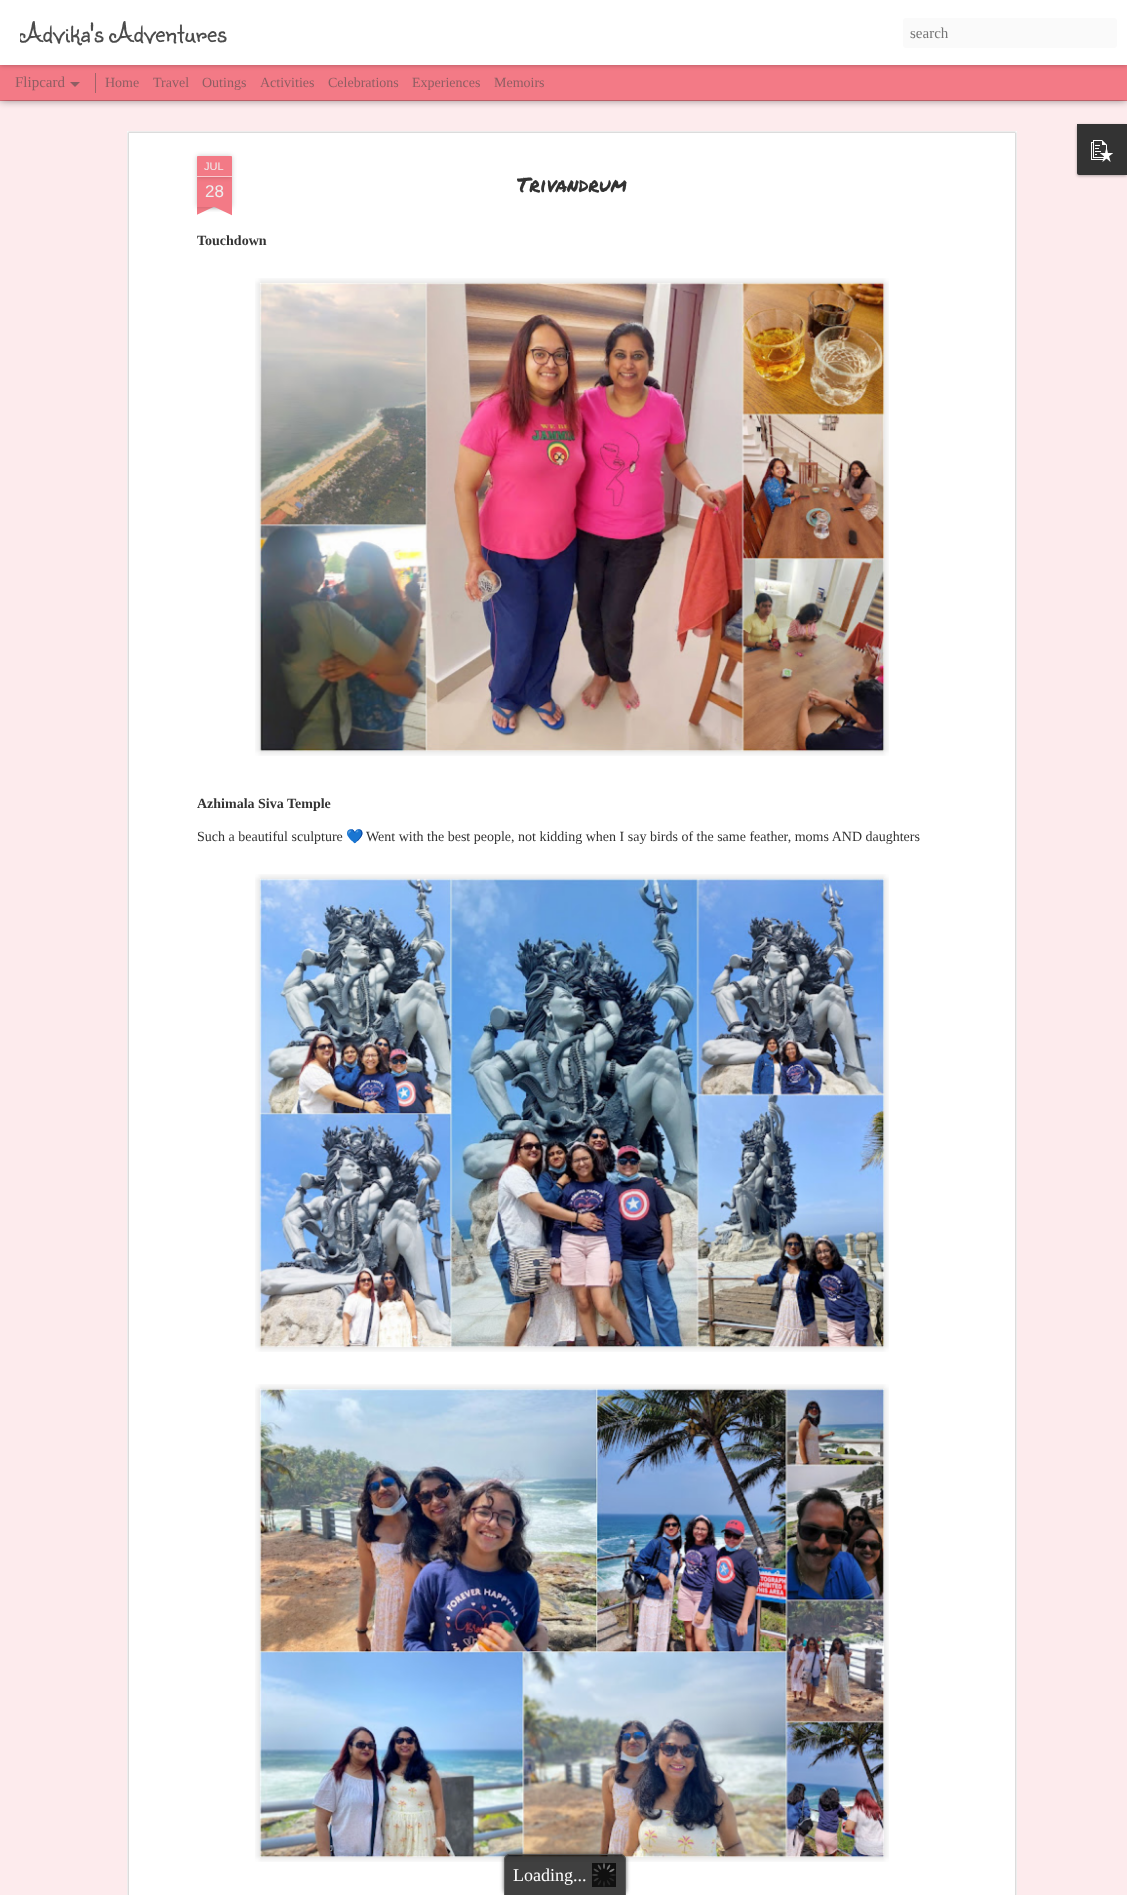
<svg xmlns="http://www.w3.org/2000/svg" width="1127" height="1895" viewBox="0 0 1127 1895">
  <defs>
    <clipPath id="clip1"><path d="M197 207h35v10H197z"/></clipPath>
    <clipPath id="clip2"><path d="M197 207h35v10H197z"/></clipPath>
    <clipPath id="clip3"><path d="M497 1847H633V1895H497ZM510 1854H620C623.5 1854 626 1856.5 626 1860V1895H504V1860C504 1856.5 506.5 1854 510 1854Z" clip-rule="evenodd"/></clipPath>
    <clipPath id="clip4"><path d="M20 0h872v65H20z"/></clipPath>
  </defs>
  <rect width="100%" height="100%" fill="#f37a86"/>
  <path d="M0 101h1127v1794H0z" fill="#fdebed"/>
  <path d="M0 65h1127v35H0z" fill="#00000080" filter="blur(4px)"/>
  <path d="M0 65h1127v35H0z" fill="#f37a86"/>
  <path d="M95 73h1v20H95z" fill="#a06369"/>
  <path d="M0 0h1127v65H0z" fill="#0000004d" filter="blur(2.5px)"/>
  <path d="M0 0h1127v65H0z" fill="#fff"/>
  <rect x="903" y="18" width="214" height="30" rx="3" fill="#fafafa"/>
  <path d="M70 82H80L75 87Z" fill="#8f5e63"/>
  <rect x="1077" y="125" width="50" height="51" rx="2" fill="#0000004d" filter="blur(1.5px)"/>
  <path d="M1077 124H1127V175H1079C1078 175 1077 174 1077 173Z" fill="#333"/>
  <image x="1091" y="140" width="22" height="22" href="img/1.png"/>
  <path d="M127 131h890v1764H127z" fill="#fff"/>
  <image x="127" y="131" width="890" height="1764" href="img/2.png"/>
  <path d="M197 177h35v30H197z" fill="#00000033" filter="blur(2.5px)"/>
  <path d="M197 177h35v30H197z" fill="#f37a86"/>
  <rect x="197" y="156" width="35" height="21" rx="1" fill="#00000033" filter="blur(2.5px)"/>
  <path d="M198 156H231C231.5 156 232 156.5 232 157V177H197V157C197 156.5 197.5 156 198 156Z" fill="#f37a86"/>
  <path d="M197 176h35v1H197z" fill="#facacf"/>
  <g clip-path="url(#clip1)">
    <path d="M188 197h50v10H188z" fill="#00000033" filter="blur(2.5px)"/>
  </g>
  <g clip-path="url(#clip2)">
    <path d="M188 208L233 187L237 196L192 217Z" fill="#f37a86"/>
  </g>
  <g clip-path="url(#clip1)">
    <path d="M191 197h50v10H191z" fill="#00000033" filter="blur(2.5px)"/>
  </g>
  <g clip-path="url(#clip2)">
    <path d="M195 187L240 208L236 217L191 196Z" fill="#f37a86"/>
  </g>
  <image x="255" y="278" width="634" height="478" href="img/3.png"/>
  <image x="259" y="282" width="626" height="470" href="img/4.png"/>
  <image x="255" y="874" width="634" height="478" href="img/5.png"/>
  <image x="259" y="878" width="626" height="470" href="img/6.png"/>
  <image x="255" y="1384" width="634" height="478" href="img/7.png"/>
  <image x="259" y="1388" width="626" height="470" href="img/8.png"/>
  <g clip-path="url(#clip3)">
    <rect x="504" y="1854" width="122" height="41" rx="6" fill="#333333bf" filter="blur(2px)"/>
  </g>
  <path d="M510 1854H620C623.5 1854 626 1856.5 626 1860V1895H504V1860C504 1856.5 506.5 1854 510 1854Z" fill="#000000bf"/>
  <path d="M510 1854H620C623 1854 626 1857 626 1860V1895H504V1860C504 1857 507 1854 510 1854ZM510 1855H620C623 1855 625 1857 625 1860V1895H505V1860C505 1857 507 1855 510 1855Z" fill="#666666bf" fill-rule="evenodd"/>
  <image x="592" y="1863" width="24" height="24" href="img/9.png"/>
  <g clip-path="url(#clip4)">
    <text x="20" y="42" font-family="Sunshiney" font-size="28" fill="#4c4c4c">Advika's Adventures</text>
  </g>
  <text x="910" y="38" font-family="Liberation Serif" font-size="15" fill="#757575">search</text>
  <text x="15" y="87" font-family="Liberation Serif" font-size="15" fill="#8f5e63">Flipcard</text>
  <g font-family="Liberation Serif" font-size="14" fill="#8f5e63">
    <text x="105" y="87">Home</text>
    <text x="153" y="87">Travel</text>
    <text x="202" y="87">Outings</text>
    <text x="260" y="87">Activities</text>
    <text x="328" y="87">Celebrations</text>
    <text x="412" y="87">Experiences</text>
    <text x="494" y="87">Memoirs</text>
  </g>
  <text x="204" y="170" font-family="Liberation Sans" font-size="11" fill="#eee">JUL</text>
  <text x="205" y="197" font-family="Liberation Sans" font-size="17" fill="#eee">28</text>
  <text x="517" y="192" font-family="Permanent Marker" font-size="20" fill="#333">Trivandrum</text>
  <g font-family="Liberation Serif" font-size="14" font-weight="bold" fill="#333">
    <text x="197" y="245">Touchdown</text>
    <text x="197" y="808">Azhimala Siva Temple</text>
  </g>
  <text x="197" y="841" font-family="Liberation Serif" font-size="14" fill="#333">Such a beautiful sculpture</text>
  <text x="346" y="841" font-family="Noto Color Emoji" font-size="14" fill="#333">💙</text>
  <text x="366" y="841" font-family="Liberation Serif" font-size="14" fill="#333">Went with the best people, not kidding when I say birds of the same feather, moms AND daughters</text>
  <text x="513" y="1881" font-family="Liberation Serif" font-size="18" fill="#fff">Loading...</text>
</svg>
